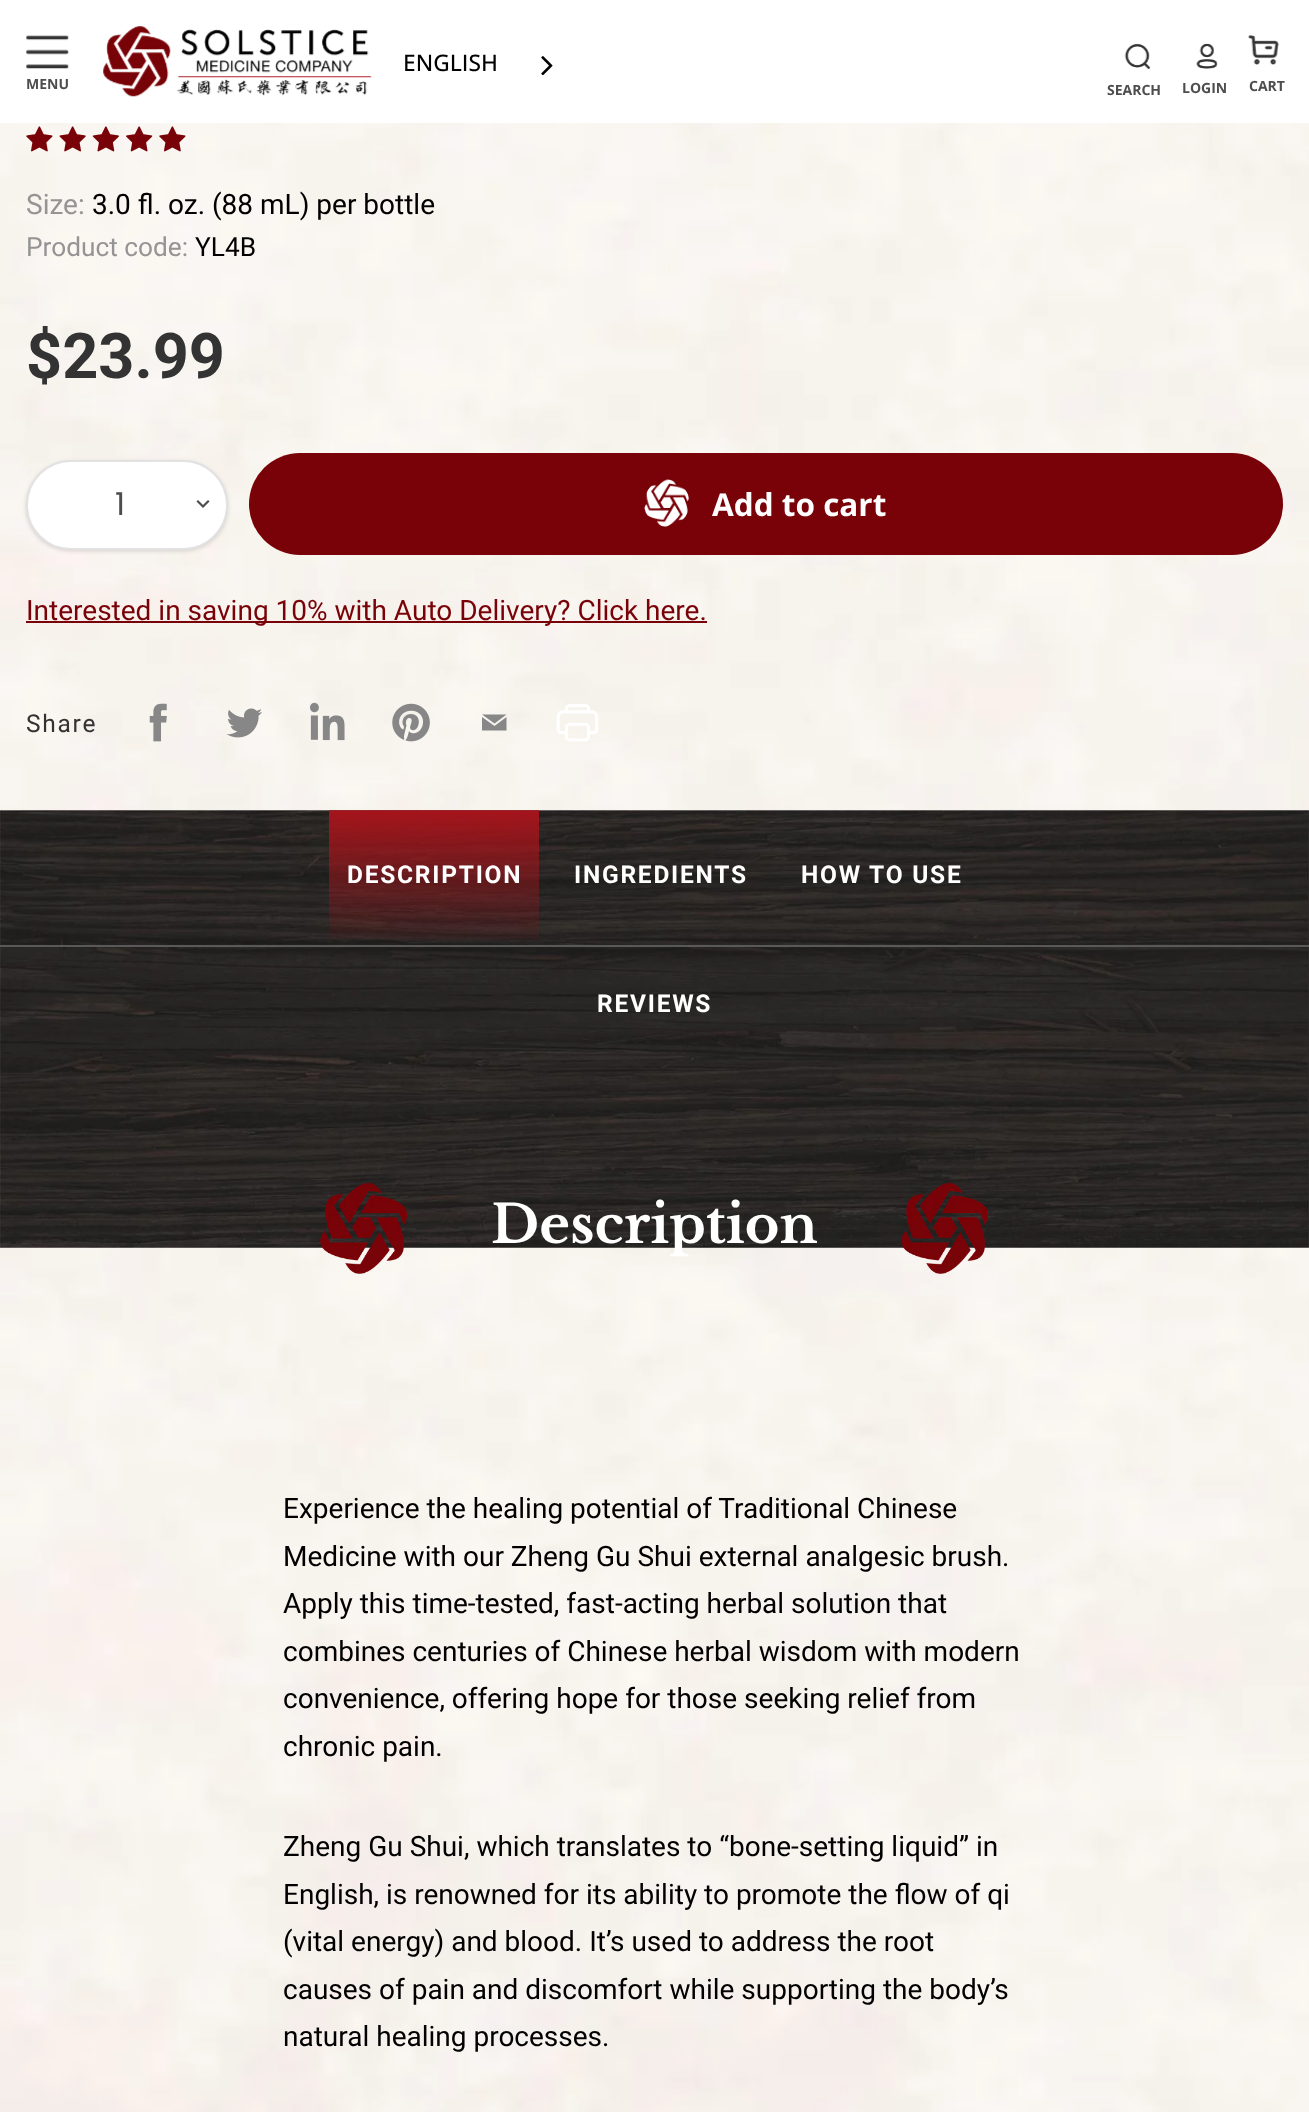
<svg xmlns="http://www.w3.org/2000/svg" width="1309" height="2112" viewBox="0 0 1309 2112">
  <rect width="100%" height="100%" fill="#fff"/>
  <image x="541" y="56" width="12" height="20" href="img/1.png"/>
  <image x="26" y="35" width="43" height="34" href="img/2.png"/>
  <image x="103" y="26" width="269" height="71" href="img/3.png"/>
  <image x="1124" y="43" width="27" height="26" href="img/4.png"/>
  <image x="1196" y="43" width="22" height="26" href="img/5.png"/>
  <image x="1247" y="35" width="32" height="30" href="img/6.png"/>
  <image x="0" y="123" width="1309" height="1989" href="img/7.png"/>
  <image x="26" y="126" width="27" height="26" href="img/8.png"/>
  <image x="59" y="126" width="27" height="26" href="img/9.png"/>
  <image x="92" y="126" width="27" height="26" href="img/10.png"/>
  <image x="126" y="126" width="27" height="26" href="img/11.png"/>
  <image x="159" y="126" width="27" height="26" href="img/12.png"/>
  <rect x="26" y="462" width="202" height="89" rx="44.5" fill="#00000026" filter="blur(2px)"/>
  <rect x="27" y="461" width="200" height="88" rx="44" fill="#fff" stroke="#e2e2e2" stroke-width="2"/>
  <path d="M203 506.5L208 501.5M203 506.5L198 501.5" fill="none" stroke="#4d4d4d" stroke-width="2.2" stroke-linecap="square"/>
  <rect x="249" y="453" width="1034" height="102" rx="51" fill="#790208"/>
  <image x="644" y="479" width="45" height="48" href="img/13.png"/>
  <path d="M26 621h681v2H26z" fill="#790208"/>
  <image x="149" y="703" width="18" height="39" href="img/14.png"/>
  <image x="226" y="708" width="36" height="30" href="img/15.png"/>
  <image x="310" y="702" width="35" height="39" href="img/16.png"/>
  <image x="392" y="703" width="38" height="39" href="img/17.png"/>
  <path d="M506.5 714.5H482L494.5 723.5ZM494.5 726L482 717V730.5H506.5V717Z" fill="#878787" fill-rule="evenodd"/>
  <image x="556" y="704" width="43" height="38" href="img/18.png"/>
  <image x="0" y="810" width="1309" height="438" href="img/19.png"/>
  <image x="329" y="810" width="210" height="130" href="img/20.png"/>
  <image x="320" y="1183" width="88" height="91" href="img/21.png"/>
  <image x="901" y="1183" width="88" height="91" href="img/22.png"/>
  <path d="M0 945h1309v2H0z" fill="#595959"/>
  <text x="403" y="71" font-family="Open Sans" font-size="22.75" font-weight="500" fill="#000">ENGLISH</text>
  <g font-family="Open Sans" font-size="14" font-weight="bold" fill="#4d4d4d">
    <text x="26" y="89">MENU</text>
    <text x="1107" y="95">SEARCH</text>
    <text x="1182" y="93">LOGIN</text>
    <text x="1249" y="91">CART</text>
  </g>
  <text x="26" y="214" font-family="Roboto" font-size="28" fill="#949494">Size:</text>
  <text x="92" y="214" font-family="Roboto" font-size="28" fill="#000">3.0 fl. oz. (88 mL) per bottle</text>
  <text x="26" y="256" font-family="Roboto" font-size="26.25" fill="#949494">Product code:</text>
  <text x="195" y="256" font-family="Roboto" font-size="26.25" fill="#000">YL4B</text>
  <text x="26" y="378" font-family="Roboto" font-size="63" font-weight="bold" fill="#333">$23.99</text>
  <text x="115" y="515" font-family="Poppins" font-size="31.5" fill="#4d4d4d">1</text>
  <text x="712" y="516" font-family="Open Sans" font-size="31.5" font-weight="bold" fill="#fff">Add to cart</text>
  <text x="26" y="620" font-family="Roboto" font-size="28" fill="#790208">Interested in saving 10% with Auto Delivery? Click here.</text>
  <text x="26" y="732" font-family="Roboto" font-size="24.5" letter-spacing="1.75" fill="#333">Share</text>
  <g font-family="Roboto" font-size="24.5" font-weight="bold" letter-spacing="1.75" fill="#fff">
    <text x="347" y="883">DESCRIPTION</text>
    <text x="574" y="883">INGREDIENTS</text>
    <text x="801" y="883">HOW TO USE</text>
    <text x="597" y="1012">REVIEWS</text>
  </g>
  <text x="491" y="1243" font-family="Libre Baskerville" font-size="52.5" font-weight="bold" fill="#fff">Description</text>
  <g font-family="Roboto" font-size="28" fill="#000">
    <text x="283" y="1518">Experience the healing potential of Traditional Chinese</text>
    <text x="283" y="1566">Medicine with our Zheng Gu Shui external analgesic brush.</text>
    <text x="283" y="1613">Apply this time-tested, fast-acting herbal solution that</text>
    <text x="283" y="1661">combines centuries of Chinese herbal wisdom with modern</text>
    <text x="283" y="1708">convenience, offering hope for those seeking relief from</text>
    <text x="283" y="1756">chronic pain.</text>
    <text x="283" y="1856">Zheng Gu Shui, which translates to “bone-setting liquid” in</text>
    <text x="283" y="1904">English, is renowned for its ability to promote the flow of qi</text>
    <text x="283" y="1951">(vital energy) and blood. It’s used to address the root</text>
    <text x="283" y="1999">causes of pain and discomfort while supporting the body’s</text>
    <text x="283" y="2046">natural healing processes.</text>
  </g>
</svg>
